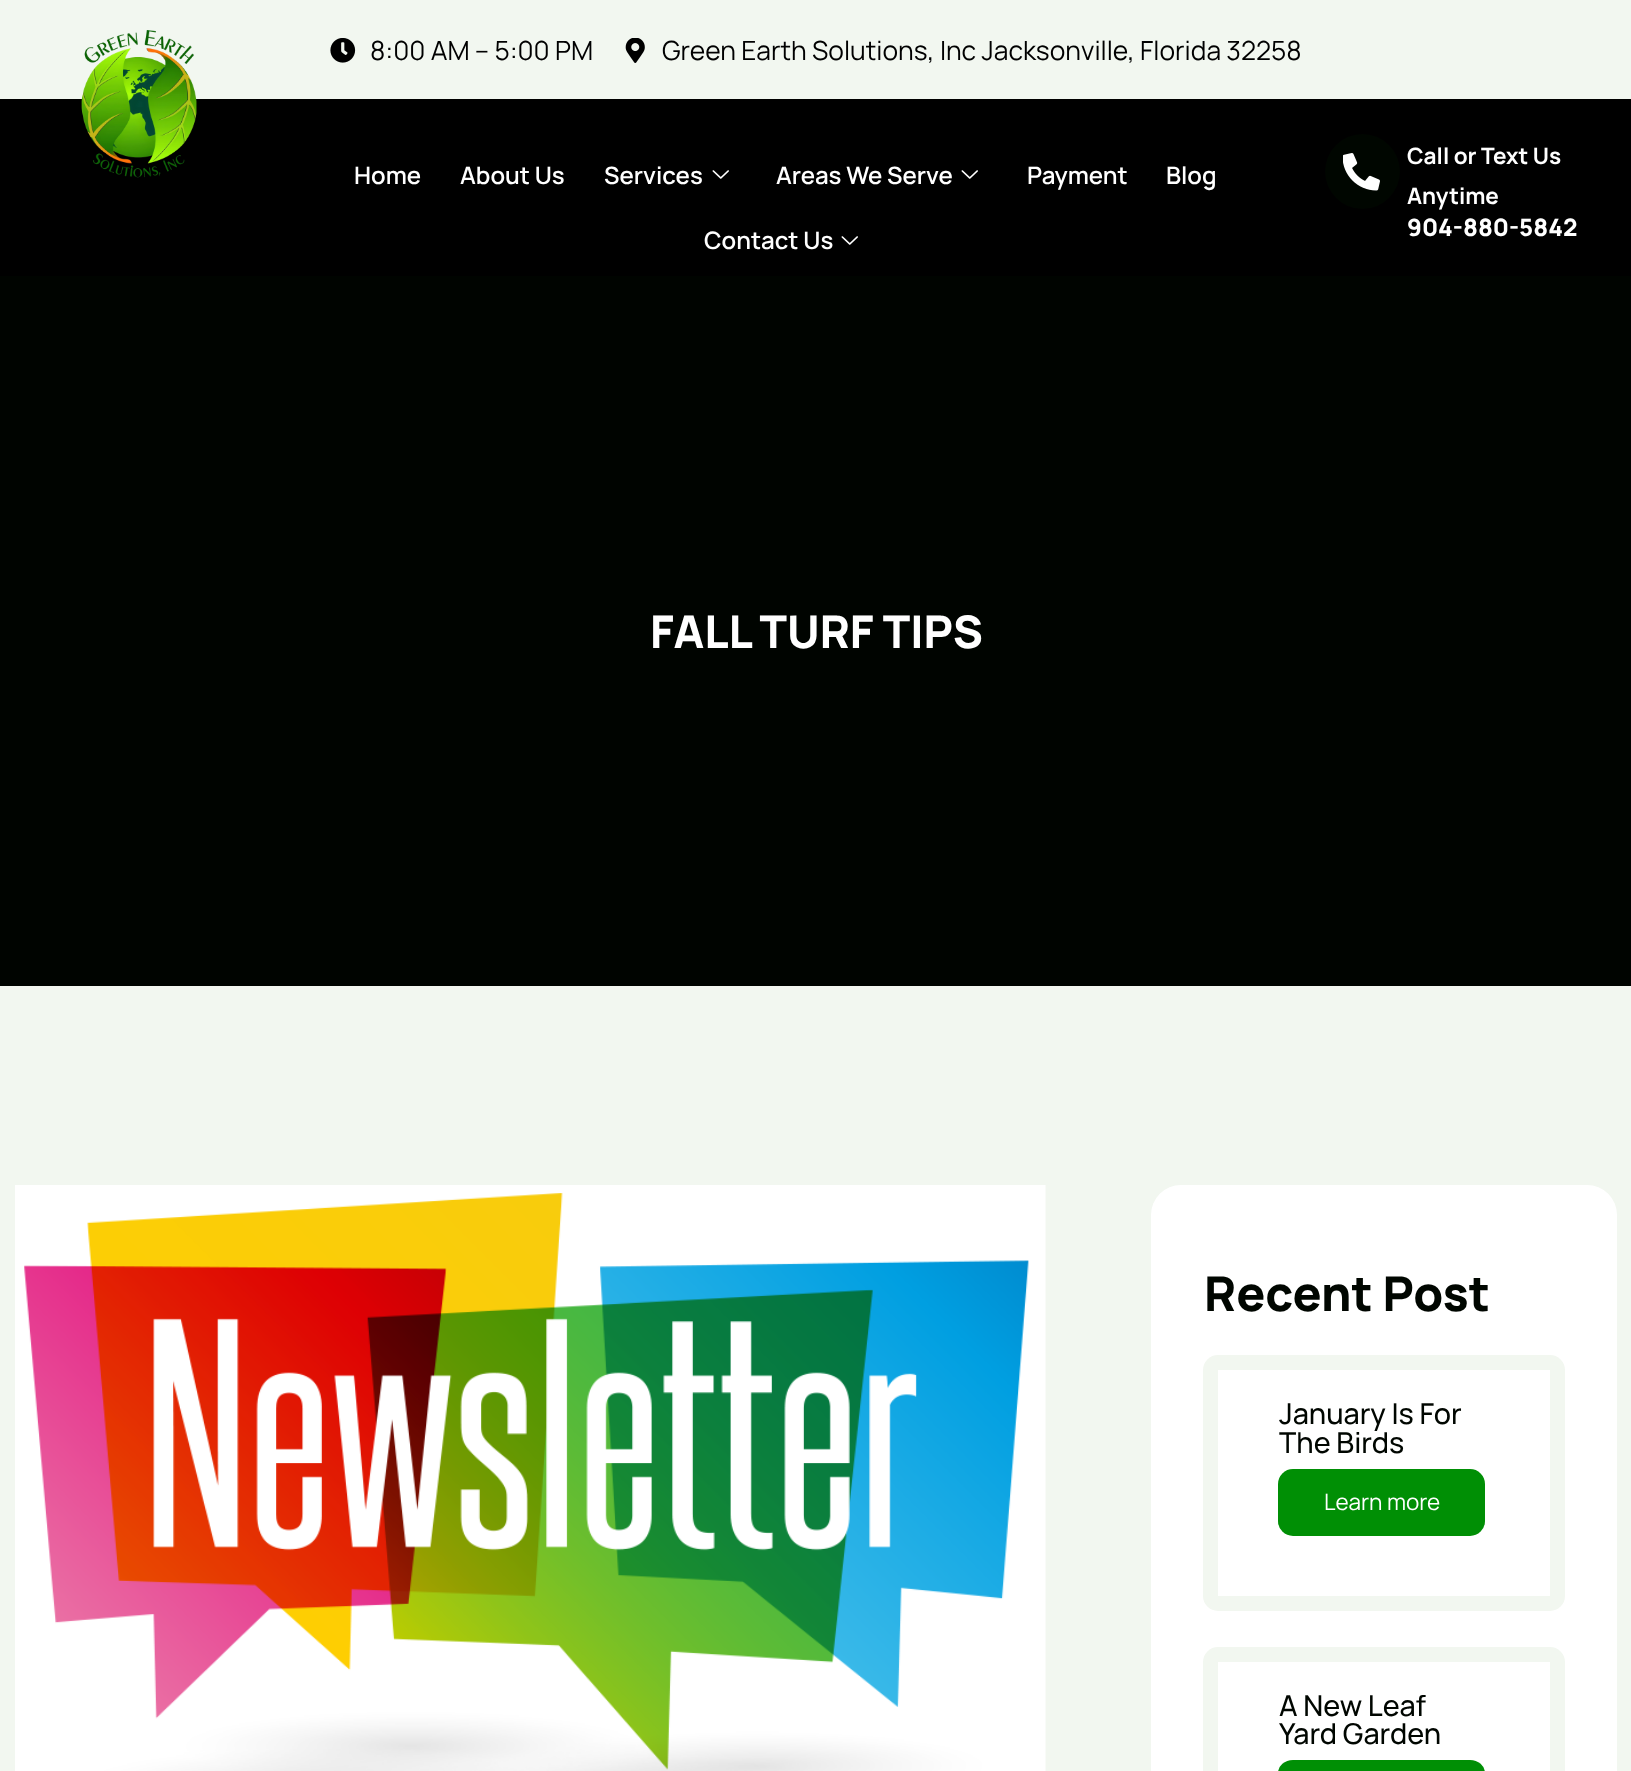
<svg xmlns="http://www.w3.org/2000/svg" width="1631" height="1771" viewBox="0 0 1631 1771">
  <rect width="100%" height="100%" fill="#f2f7f0"/>
  <image x="330" y="38" width="26" height="25" href="img/1.png"/>
  <image x="625" y="38" width="20" height="25" href="img/2.png"/>
  <path d="M0 99h1631v177H0z" fill="#000"/>
  <image x="81" y="30" width="116" height="148" href="img/3.png"/>
  <image x="712" y="170" width="17" height="9" href="img/4.png"/>
  <image x="961" y="170" width="17" height="9" href="img/4.png"/>
  <image x="841" y="236" width="17" height="9" href="img/4.png"/>
  <circle cx="1362.5" cy="171.5" r="37.5" fill="#000600"/>
  <image x="1343" y="153" width="37" height="38" href="img/5.png"/>
  <path d="M0 276h1631v710H0z" fill="#000400"/>
  <image x="15" y="1185" width="1031" height="586" href="img/6.png"/>
  <rect x="1151" y="1185" width="466" height="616" rx="30" fill="#fff"/>
  <rect x="1203" y="1355" width="362" height="256" rx="15" fill="#f2f7f0"/>
  <path d="M1218 1370h332v226H1218z" fill="#fff"/>
  <rect x="1278" y="1469" width="207" height="67" rx="15" fill="#008f05"/>
  <rect x="1203" y="1647" width="362" height="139" rx="15" fill="#f2f7f0"/>
  <path d="M1218 1662h332v109H1218z" fill="#fff"/>
  <rect x="1278" y="1760" width="207" height="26" rx="15" fill="#008f05"/>
  <g font-family="Manrope" font-size="26.4" fill="#000">
    <text x="370" y="60">8:00 AM – 5:00 PM</text>
    <text x="662" y="60">Green Earth Solutions, Inc Jacksonville, Florida 32258</text>
  </g>
  <g font-family="Manrope" font-size="24" font-weight="600" fill="#fff">
    <text x="354" y="184">Home</text>
    <text x="460" y="184">About Us</text>
    <text x="604" y="184">Services</text>
    <text x="776" y="184">Areas We Serve</text>
    <text x="1027" y="184">Payment</text>
    <text x="1166" y="184">Blog</text>
    <text x="704" y="249">Contact Us</text>
  </g>
  <g font-family="Manrope" font-size="22.5" font-weight="bold" fill="#fff">
    <text x="1407" y="164">Call or Text Us</text>
    <text x="1407" y="204">Anytime</text>
  </g>
  <text x="1407" y="236" font-family="Manrope" font-size="24" font-weight="800" fill="#fff">904-880-5842</text>
  <text x="650" y="648" font-family="Manrope" font-size="45" font-weight="800" fill="#fff">FALL TURF TIPS</text>
  <text x="1204" y="1311" font-family="Manrope" font-size="48" font-weight="800" fill="#000600">Recent Post</text>
  <g font-family="Manrope" font-size="28.75" font-weight="500" fill="#000600">
    <text x="1279" y="1424">January Is For</text>
    <text x="1279" y="1453">The Birds</text>
  </g>
  <text x="1324" y="1510" font-family="Manrope" font-size="22.5" fill="#fff">Learn more</text>
  <g font-family="Manrope" font-size="28.75" font-weight="500" fill="#000600">
    <text x="1279" y="1716">A New Leaf</text>
    <text x="1279" y="1744">Yard Garden</text>
  </g>
</svg>
